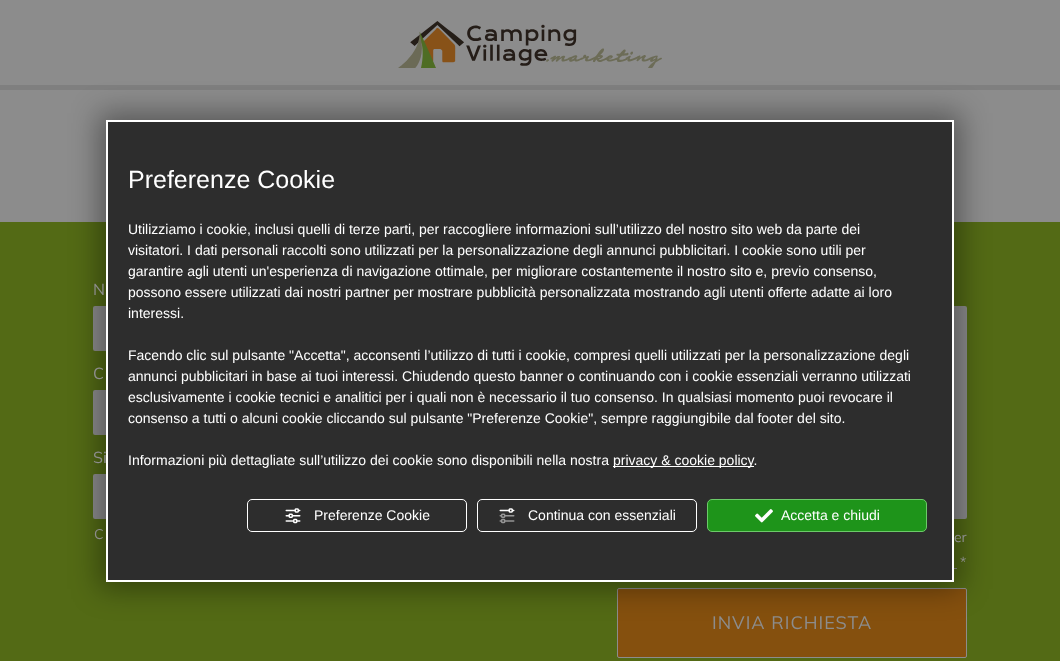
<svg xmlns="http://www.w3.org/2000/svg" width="1060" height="661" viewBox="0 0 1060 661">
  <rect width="100%" height="100%" fill="#8c8c8c"/>
  <path d="M0 85h1060v5H0z" fill="#7f7f7f"/>
  <path d="M0 222h1060v439H0z" fill="#536a15"/>
  <rect x="93" y="306" width="211" height="45" rx="2" fill="#8c8c8c"/>
  <rect x="93" y="390" width="211" height="45" rx="2" fill="#8c8c8c"/>
  <rect x="93" y="474" width="653" height="45" rx="2" fill="#8c8c8c"/>
  <rect x="756" y="306" width="211" height="213" rx="2" fill="#8c8c8c"/>
  <path d="M954 568h3v1H954z" fill="#8c8c8c"/>
  <rect x="617.5" y="588.5" width="349" height="69" rx="1.5" fill="#85500e" stroke="#8c8c8c"/>
  <path d="M99 113h862v476H99z" fill="#00000061" filter="blur(14.5px)"/>
  <path d="M107 121h846v460H107z" fill="#2d2d2d" stroke="#fff" stroke-width="2"/>
  <path d="M613 466h141v1H613z" fill="#fff"/>
  <rect x="247.5" y="499.5" width="219" height="32" rx="4.5" fill="none" stroke="#fff"/>
  <image x="285" y="508" width="16" height="16" href="img/1.png"/>
  <rect x="477.5" y="499.5" width="219" height="32" rx="4.5" fill="none" stroke="#fff"/>
  <image x="499" y="508" width="16" height="16" href="img/2.png"/>
  <rect x="707.5" y="499.5" width="219" height="32" rx="4.5" fill="#1e941a" stroke="#6cca69"/>
  <image x="755" y="509" width="18" height="14" href="img/3.png"/>
  <image x="398" y="21" width="264" height="47" href="img/4.png"/>
  <text x="128" y="188" font-family="Liberation Sans" font-size="25" fill="#fff">Preferenze Cookie</text>
  <g font-family="Liberation Sans" font-size="14" fill="#fff">
    <text x="128" y="234">Utilizziamo i cookie, inclusi quelli di terze parti, per raccogliere informazioni sull’utilizzo del nostro sito web da parte dei</text>
    <text x="128" y="255">visitatori. I dati personali raccolti sono utilizzati per la personalizzazione degli annunci pubblicitari. I cookie sono utili per</text>
    <text x="128" y="276">garantire agli utenti un'esperienza di navigazione ottimale, per migliorare costantemente il nostro sito e, previo consenso,</text>
    <text x="128" y="297">possono essere utilizzati dai nostri partner per mostrare pubblicità personalizzata mostrando agli utenti offerte adatte ai loro</text>
    <text x="128" y="318">interessi.</text>
    <text x="128" y="360">Facendo clic sul pulsante "Accetta", acconsenti l’utilizzo di tutti i cookie, compresi quelli utilizzati per la personalizzazione degli</text>
    <text x="128" y="381">annunci pubblicitari in base ai tuoi interessi. Chiudendo questo banner o continuando con i cookie essenziali verranno utilizzati</text>
    <text x="128" y="402">esclusivamente i cookie tecnici e analitici per i quali non è necessario il tuo consenso. In qualsiasi momento puoi revocare il</text>
    <text x="128" y="423">consenso a tutti o alcuni cookie cliccando sul pulsante "Preferenze Cookie", sempre raggiungibile dal footer del sito.</text>
    <text x="128" y="465">Informazioni più dettagliate sull’utilizzo dei cookie sono disponibili nella nostra</text>
    <text x="613" y="465">privacy &amp; cookie policy.</text>
    <text x="314" y="520">Preferenze Cookie</text>
    <text x="528" y="520">Continua con essenziali</text>
    <text x="781" y="520">Accetta e chiudi</text>
  </g>
  <g font-family="Mulish" font-size="16" fill="#8c8c8c">
    <text x="93" y="295">N</text>
    <text x="93" y="379">C</text>
    <text x="93" y="463">Si</text>
  </g>
  <g font-family="Mulish" font-size="14" fill="#8c8c8c">
    <text x="94" y="539">C</text>
    <text x="954" y="542">er</text>
    <text x="960" y="567">*</text>
  </g>
  <text x="712" y="629" font-family="Mulish" font-size="18" letter-spacing="1" fill="#8c8c8c">INVIA RICHIESTA</text>
</svg>
